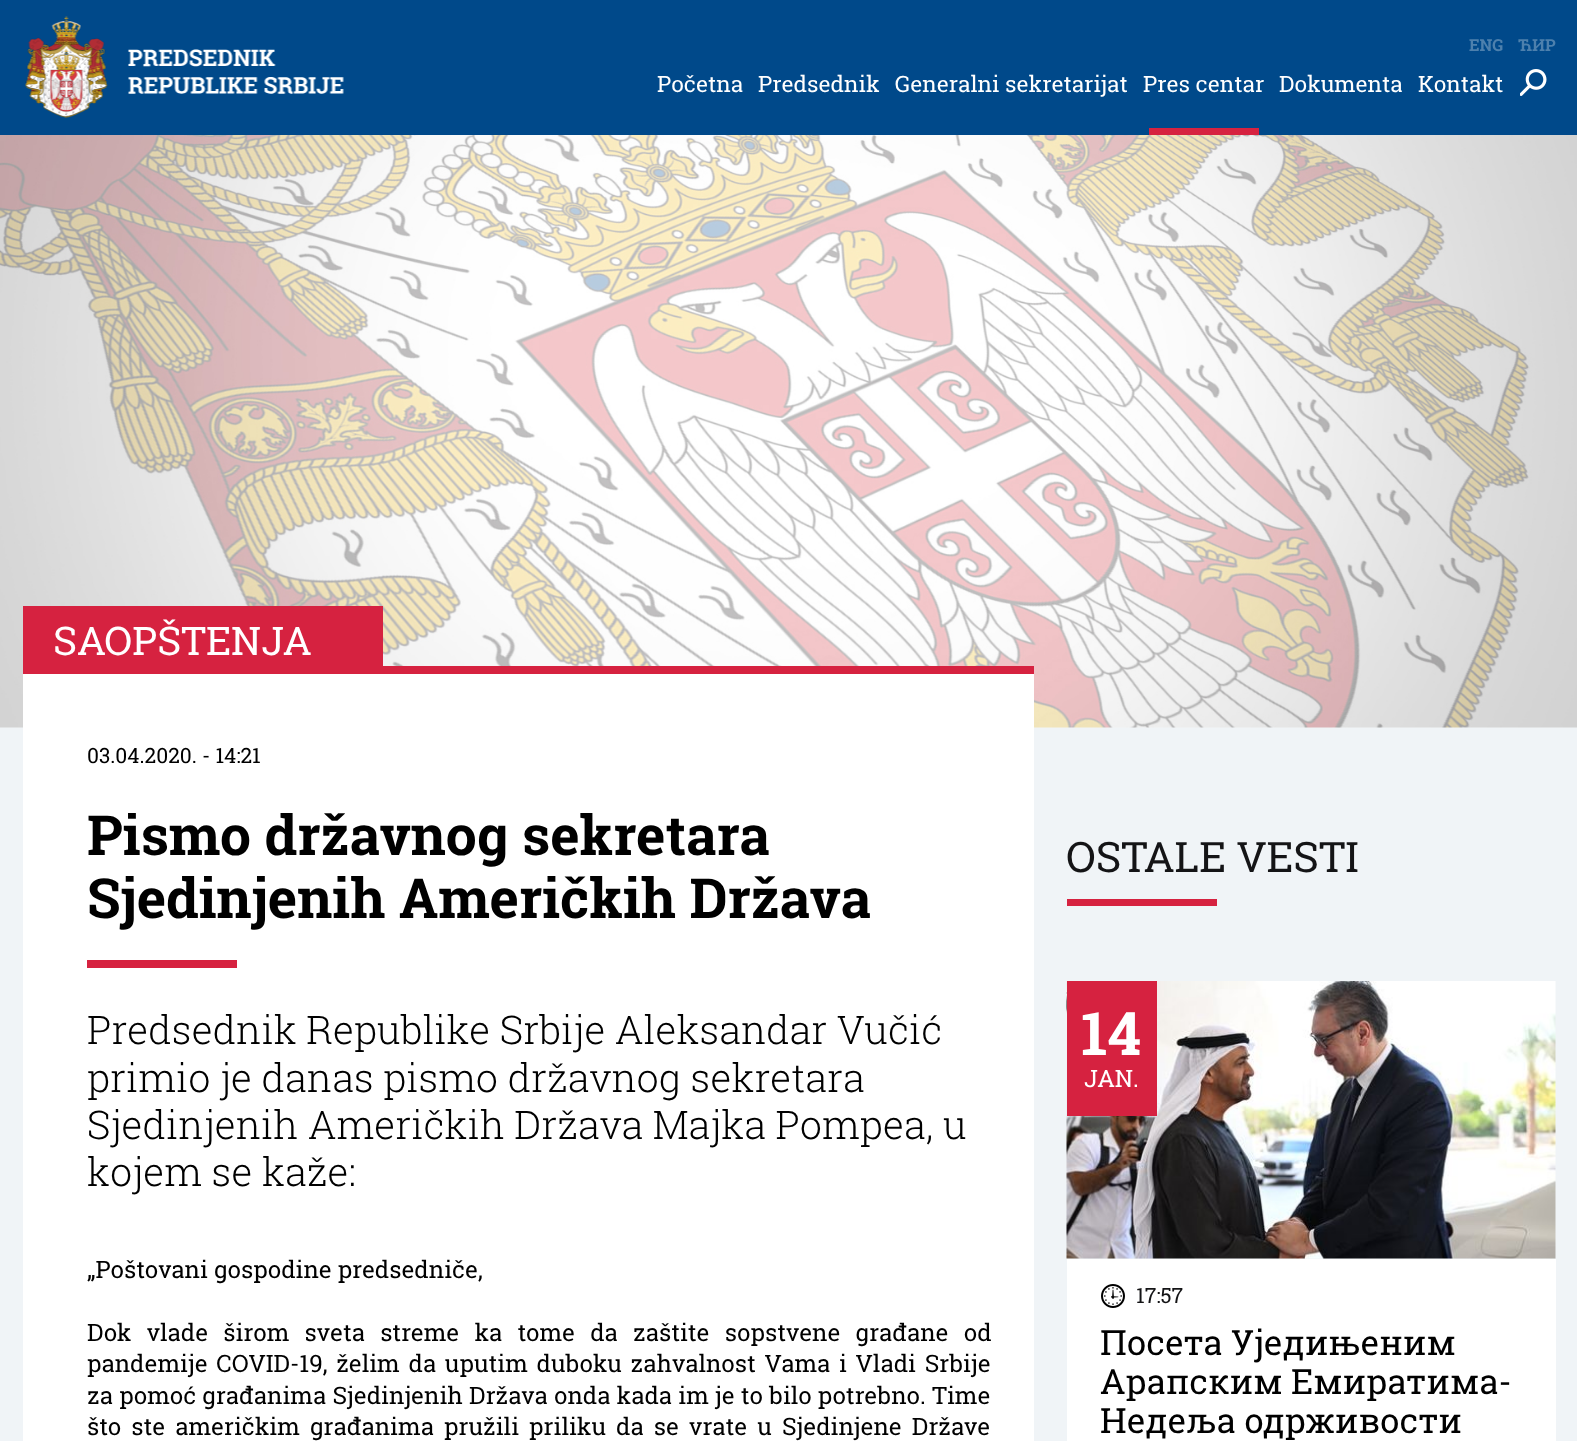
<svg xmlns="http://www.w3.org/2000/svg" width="1577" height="1441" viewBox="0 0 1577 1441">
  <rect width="100%" height="100%" fill="#f0f4f7"/>
  <path d="M0 0h1577v135H0z" fill="#00498a"/>
  <image x="25" y="16" width="319" height="102" href="img/1.png"/>
  <path d="M1149 128h110v7H1149z" fill="#d62240"/>
  <image x="1520" y="69" width="27" height="27" href="img/2.png"/>
  <image x="0" y="135" width="1577" height="593" href="img/3.png"/>
  <path d="M23 606h360v60H23z" fill="#d62240"/>
  <path d="M23 666h1011v8H23z" fill="#d62240"/>
  <path d="M23 674h1011v767H23z" fill="#fff"/>
  <path d="M87 960h150v8H87z" fill="#d62240"/>
  <path d="M1067 899h150v7H1067z" fill="#d62240"/>
  <image x="1066" y="981" width="490" height="278" href="img/4.png"/>
  <path d="M1067 981h90v135H1067z" fill="#d62240"/>
  <path d="M1067 1259h489v182H1067z" fill="#fff"/>
  <image x="1101" y="1284" width="24" height="24" href="img/5.png"/>
  <g font-family="Roboto Slab" font-size="16.5" font-weight="bold" fill="#4d80ad">
    <text x="1469" y="51">ENG</text>
    <text x="1518" y="51">ЋИР</text>
  </g>
  <g font-family="Roboto Slab" font-size="22.5" fill="#fff">
    <text x="657" y="92">Početna</text>
    <text x="758" y="92">Predsednik</text>
    <text x="895" y="92">Generalni sekretarijat</text>
    <text x="1143" y="92">Pres centar</text>
    <text x="1279" y="92">Dokumenta</text>
    <text x="1418" y="92">Kontakt</text>
  </g>
  <text x="53" y="655" font-family="Roboto Slab" font-size="39.45" fill="#fff">SAOPŠTENJA</text>
  <text x="87" y="763" font-family="Roboto Slab" font-size="21" fill="#000">03.04.2020. - 14:21</text>
  <g font-family="Roboto Slab" font-size="55.25" font-weight="bold" fill="#000">
    <text x="87" y="855">Pismo državnog sekretara</text>
    <text x="87" y="918">Sjedinjenih Američkih Država</text>
  </g>
  <g font-family="Roboto Slab" font-size="39.45" font-weight="300" fill="#000">
    <text x="87" y="1044">Predsednik Republike Srbije Aleksandar Vučić</text>
    <text x="87" y="1092">primio je danas pismo državnog sekretara</text>
    <text x="87" y="1139">Sjedinjenih Američkih Država Majka Pompea, u</text>
    <text x="87" y="1186">kojem se kaže:</text>
  </g>
  <g font-family="Roboto Slab" font-size="24" fill="#000">
    <text x="87" y="1278">„Poštovani gospodine predsedniče,</text>
    <text x="87" y="1341" word-spacing="9.25">Dok vlade širom sveta streme ka tome da zaštite sopstvene građane od</text>
    <text x="87" y="1372" word-spacing="2.75">pandemije COVID-19, želim da uputim duboku zahvalnost Vama i Vladi Srbije</text>
    <text x="87" y="1404" word-spacing="0.25">za pomoć građanima Sjedinjenih Država onda kada im je to bilo potrebno. Time</text>
    <text x="87" y="1435" word-spacing="4.1">što ste američkim građanima pružili priliku da se vrate u Sjedinjene Države</text>
  </g>
  <text x="1066" y="872" font-family="Roboto Slab" font-size="42" fill="#141416">OSTALE VESTI</text>
  <text x="1081" y="1055" font-family="Roboto Slab" font-size="60" font-weight="bold" fill="#fff">14</text>
  <text x="1084" y="1087" font-family="Roboto Slab" font-size="24" fill="#fff">JAN.</text>
  <text x="1136" y="1303" font-family="Roboto Slab" font-size="21" fill="#141416">17:57</text>
  <g font-family="Roboto Slab" font-size="34.75" fill="#000">
    <text x="1100" y="1355">Посета Уједињеним</text>
    <text x="1100" y="1394">Арапским Емиратима-</text>
    <text x="1100" y="1433">Недеља одрживости</text>
  </g>
</svg>
